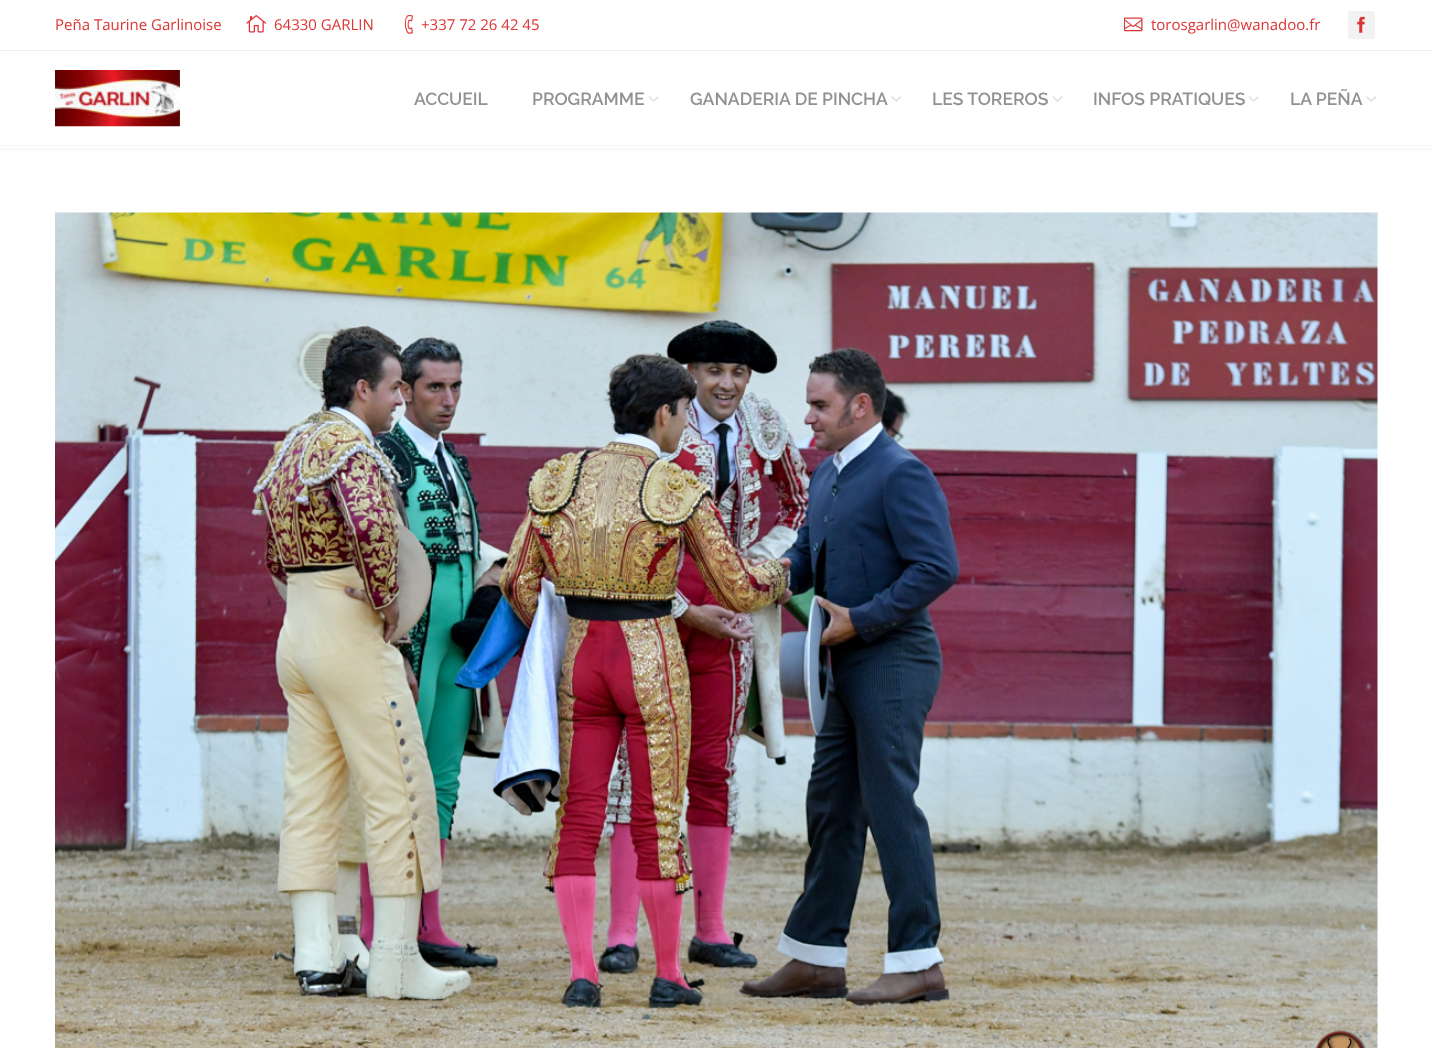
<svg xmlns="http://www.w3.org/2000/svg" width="1432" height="1048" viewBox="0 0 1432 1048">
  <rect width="100%" height="100%" fill="#fff"/>
  <path d="M0 145V146H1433V1H1432V145Z" fill="#f3f4f5"/>
  <path d="M0 50h1432v1H0z" fill="#ededed"/>
  <image x="246" y="15" width="20" height="18" href="img/1.png"/>
  <image x="404" y="15" width="9" height="19" href="img/2.png"/>
  <image x="1124" y="17" width="19" height="15" href="img/3.png"/>
  <rect x="1348" y="11" width="27" height="28" rx="2.5" fill="#f2f2f2"/>
  <image x="1357" y="16" width="8" height="17" href="img/4.png"/>
  <image x="55" y="70" width="125" height="57" href="img/5.png"/>
  <image x="649" y="96" width="10" height="6" href="img/6.png"/>
  <image x="891" y="96" width="10" height="6" href="img/7.png"/>
  <image x="1053" y="96" width="10" height="6" href="img/8.png"/>
  <image x="1249" y="96" width="10" height="6" href="img/6.png"/>
  <image x="1366" y="96" width="10" height="6" href="img/7.png"/>
  <path d="M0 149V150H1432V231H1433V149Z" fill="#f3f4f5"/>
  <image x="55" y="212" width="1323" height="836" href="img/9.png"/>
  <g font-family="Open Sans" font-size="15" fill="#d33">
    <text x="55" y="30">Peña Taurine Garlinoise</text>
    <text x="274" y="30">64330 GARLIN</text>
    <text x="421" y="30">+337 72 26 42 45</text>
    <text x="1151" y="30">torosgarlin@wanadoo.fr</text>
  </g>
  <g font-family="Raleway" font-size="17.5" font-weight="600" fill="#919191">
    <text x="414" y="105">ACCUEIL</text>
    <text x="532" y="105">PROGRAMME</text>
    <text x="690" y="105">GANADERIA DE PINCHA</text>
    <text x="932" y="105">LES TOREROS</text>
    <text x="1093" y="105">INFOS PRATIQUES</text>
    <text x="1290" y="105">LA PEÑA</text>
  </g>
</svg>
